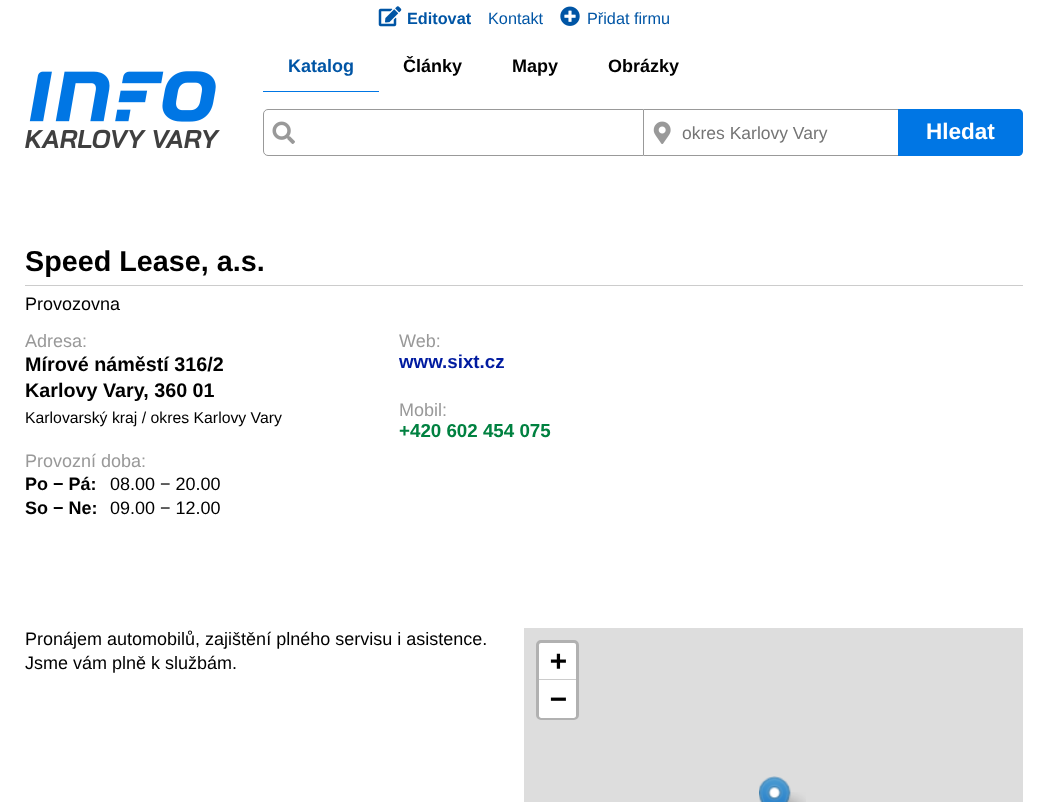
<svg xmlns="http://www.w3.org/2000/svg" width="1047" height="802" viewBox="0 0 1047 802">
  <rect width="100%" height="100%" fill="#fff"/>
  <image x="378" y="6" width="24" height="21" href="img/1.png"/>
  <image x="560" y="6" width="20" height="20" href="img/2.png"/>
  <image x="25" y="71" width="195" height="77" href="img/3.png"/>
  <path d="M263 91h116v1H263z" fill="#0076e4"/>
  <path d="M268 109.5H643.5V155.5H268C265.5 155.5 263.5 153.5 263.5 151V114C263.5 111.5 265.5 109.5 268 109.5Z" fill="none" stroke="#999"/>
  <image x="272" y="121" width="23" height="23" href="img/4.png"/>
  <image x="653" y="121" width="18" height="23" href="img/5.png"/>
  <path d="M644 109h255v1H644z" fill="#999"/>
  <path d="M644 155h255v1H644z" fill="#999"/>
  <path d="M898 109H1018C1021 109 1023 111 1023 114V151C1023 154 1021 156 1018 156H898Z" fill="#0076e4"/>
  <path d="M25 285h998v1H25z" fill="#ccc"/>
  <path d="M524 628h499v174H524z" fill="#ddd"/>
  <rect x="537.5" y="641.5" width="40" height="77" rx="3.5" fill="none" stroke="#b1b1b1" stroke-width="3"/>
  <path d="M541.5 643H573.5C575 643 576 644 576 645.5V680H539V645.5C539 644 540 643 541.5 643Z" fill="#fff"/>
  <path d="M539 679h37v1H539z" fill="#ccc"/>
  <path d="M539 680H576V715.5C576 717 575 718 573.5 718H541.5C540 718 539 717 539 715.5Z" fill="#fff"/>
  <image x="785" y="792" width="21" height="10" href="img/7.png"/>
  <image x="759" y="776" width="32" height="26" href="img/6.png"/>
  <text x="407" y="24" font-family="Liberation Sans" font-size="16.25" font-weight="bold" fill="#0055a5">Editovat</text>
  <g font-family="Liberation Sans" font-size="16.25" fill="#0055a5">
    <text x="488" y="24">Kontakt</text>
    <text x="587" y="24">Přidat firmu</text>
  </g>
  <text x="288" y="72" font-family="Liberation Sans" font-size="18" font-weight="bold" fill="#0055a5">Katalog</text>
  <g font-family="Liberation Sans" font-size="18" font-weight="bold" fill="#000">
    <text x="403" y="72">Články</text>
    <text x="512" y="72">Mapy</text>
    <text x="608" y="72">Obrázky</text>
  </g>
  <text x="682" y="139" font-family="Liberation Sans" font-size="17.5" fill="#757575">okres Karlovy Vary</text>
  <text x="926" y="139" font-family="Liberation Sans" font-size="22.5" font-weight="bold" fill="#fff">Hledat</text>
  <text x="25" y="271" font-family="Liberation Sans" font-size="28.75" font-weight="bold" fill="#000">Speed Lease, a.s.</text>
  <text x="25" y="310" font-family="Liberation Sans" font-size="18" fill="#000">Provozovna</text>
  <text x="25" y="347" font-family="Liberation Sans" font-size="18" fill="#999">Adresa:</text>
  <g font-family="Liberation Sans" font-size="19.75" font-weight="bold" fill="#000">
    <text x="25" y="371">Mírové náměstí 316/2</text>
    <text x="25" y="397">Karlovy Vary, 360 01</text>
  </g>
  <text x="25" y="423" font-family="Liberation Sans" font-size="15.8" fill="#000">Karlovarský kraj / okres Karlovy Vary</text>
  <text x="25" y="467" font-family="Liberation Sans" font-size="18" fill="#999">Provozní doba:</text>
  <text x="25" y="490" font-family="Liberation Sans" font-size="18" font-weight="bold" fill="#000">Po − Pá:</text>
  <text x="110" y="490" font-family="Liberation Sans" font-size="18" fill="#000">08.00 − 20.00</text>
  <text x="25" y="514" font-family="Liberation Sans" font-size="18" font-weight="bold" fill="#000">So − Ne:</text>
  <text x="110" y="514" font-family="Liberation Sans" font-size="18" fill="#000">09.00 − 12.00</text>
  <text x="399" y="347" font-family="Liberation Sans" font-size="18" fill="#999">Web:</text>
  <text x="399" y="368" font-family="Liberation Sans" font-size="18.75" font-weight="bold" fill="#001ba0">www.sixt.cz</text>
  <text x="399" y="416" font-family="Liberation Sans" font-size="18" fill="#999">Mobil:</text>
  <text x="399" y="437" font-family="Liberation Sans" font-size="18.75" font-weight="bold" fill="#008140">+420 602 454 075</text>
  <g font-family="Liberation Sans" font-size="18" fill="#000">
    <text x="25" y="645">Pronájem automobilů, zajištění plného servisu i asistence.</text>
    <text x="25" y="669">Jsme vám plně k službám.</text>
  </g>
  <g font-family="DejaVu Sans Mono" font-size="28" font-weight="bold" fill="#000">
    <text x="550" y="670">+</text>
    <text x="550" y="708">−</text>
  </g>
</svg>
